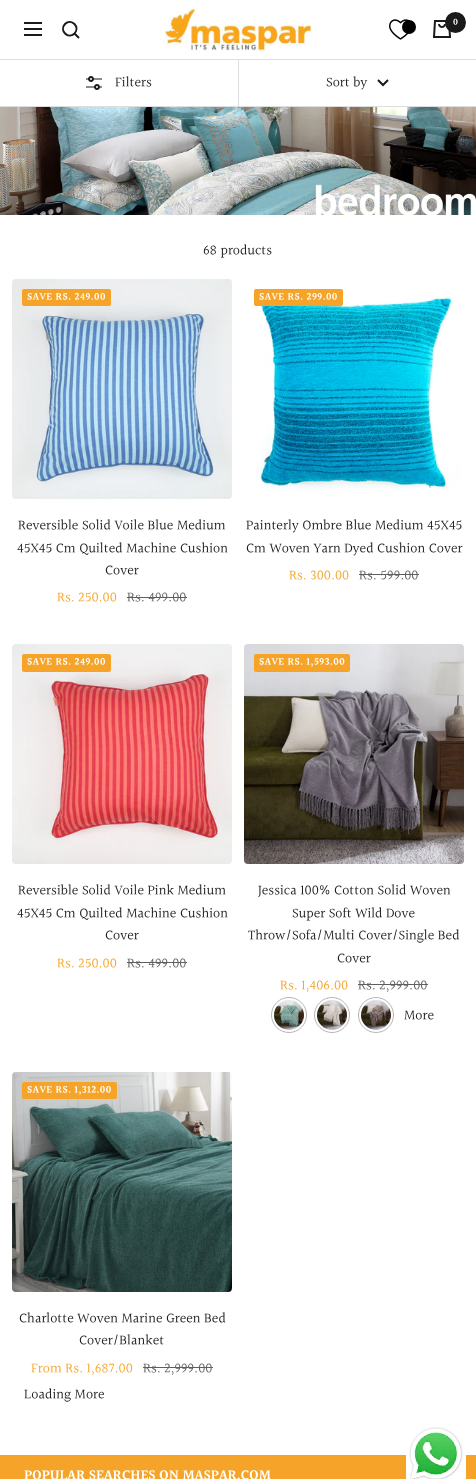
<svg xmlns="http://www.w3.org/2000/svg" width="476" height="1479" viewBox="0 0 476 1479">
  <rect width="100%" height="100%" fill="#fff"/>
  <path d="M74.5 33.5C80.5 27 71.5 18 65 24C59 30.5 68 39.5 74.5 33.5ZM74.5 33.5L79 38M24 23H42M24 35H42ZM24 29H42Z" fill="none" stroke="#1a1a1a" stroke-width="2"/>
  <image x="164" y="8" width="148" height="44" href="img/1.png"/>
  <image x="389" y="19" width="21" height="21" href="img/2.png"/>
  <circle cx="409" cy="27" r="7" fill="#000"/>
  <image x="432" y="20" width="20" height="18" href="img/3.png"/>
  <circle cx="455.5" cy="22.5" r="10.5" fill="#1a1a1a"/>
  <path d="M0 59h476v1H0z" fill="#ddd"/>
  <path d="M0 106h476v1H0z" fill="#ddd"/>
  <image x="86" y="76" width="16" height="14" href="img/4.png"/>
  <path d="M238 59h1v48H238z" fill="#ddd"/>
  <path d="M378 80L383 85L388 80" fill="none" stroke="#1a1a1a" stroke-width="2"/>
  <image x="0" y="107" width="476" height="108" href="img/5.png"/>
  <image x="12" y="279" width="220" height="220" href="img/6.png"/>
  <rect x="22" y="289" width="89" height="17" rx="2" fill="#f6a429"/>
  <path d="M127 597h60v1H127z" fill="#5f5f5f"/>
  <image x="256" y="296" width="203" height="195" href="img/7.png"/>
  <rect x="254" y="289" width="89" height="17" rx="2" fill="#f6a429"/>
  <path d="M359 574h60v1H359z" fill="#5f5f5f"/>
  <image x="12" y="644" width="220" height="220" href="img/8.png"/>
  <rect x="22" y="654" width="89" height="18" rx="2" fill="#f6a429"/>
  <path d="M127 962h60v1H127z" fill="#5f5f5f"/>
  <image x="244" y="644" width="220" height="220" href="img/9.png"/>
  <rect x="254" y="654" width="96" height="18" rx="2" fill="#f6a429"/>
  <path d="M358 984h70v1H358z" fill="#5f5f5f"/>
  <image x="274" y="1000" width="30" height="30" href="img/10.png"/>
  <circle cx="289" cy="1015" r="17.5" fill="none" stroke="#b7b4b4"/>
  <image x="317" y="1000" width="30" height="30" href="img/11.png"/>
  <circle cx="332" cy="1015" r="17.5" fill="none" stroke="#b7b4b4"/>
  <image x="361" y="1000" width="30" height="30" href="img/12.png"/>
  <circle cx="376" cy="1015" r="17.5" fill="none" stroke="#b7b4b4"/>
  <image x="12" y="1072" width="220" height="220" href="img/13.png"/>
  <rect x="22" y="1082" width="95" height="17" rx="2" fill="#f6a429"/>
  <path d="M143 1367h70v1H143z" fill="#5f5f5f"/>
  <path d="M0 1455h476v24H0z" fill="#f6a429"/>
  <image x="406" y="1427" width="60" height="52" href="img/14.png"/>
  <text x="453" y="25" font-family="Halant" font-size="9" font-weight="600" fill="#fff">0</text>
  <g font-family="Halant" font-size="14" fill="#1a1a1a">
    <text x="115" y="87">Filters</text>
    <text x="326" y="87">Sort by</text>
    <text x="203" y="255">68 products</text>
  </g>
  <text x="27" y="300" font-family="Halant" font-size="10" font-weight="600" letter-spacing="0.5" fill="#fff">SAVE RS. 249.00</text>
  <g font-family="Halant" font-size="14" fill="#1a1a1a">
    <text x="18" y="530">Reversible Solid Voile Blue Medium</text>
    <text x="17" y="553">45X45 Cm Quilted Machine Cushion</text>
    <text x="105" y="575">Cover</text>
  </g>
  <text x="57" y="602" font-family="Halant" font-size="14" fill="#f6a429">Rs. 250.00</text>
  <text x="127" y="602" font-family="Halant" font-size="14" fill="#5f5f5f">Rs. 499.00</text>
  <text x="259" y="300" font-family="Halant" font-size="10" font-weight="600" letter-spacing="0.5" fill="#fff">SAVE RS. 299.00</text>
  <g font-family="Halant" font-size="14" fill="#1a1a1a">
    <text x="246" y="530">Painterly Ombre Blue Medium 45X45</text>
    <text x="246" y="553">Cm Woven Yarn Dyed Cushion Cover</text>
  </g>
  <text x="289" y="580" font-family="Halant" font-size="14" fill="#f6a429">Rs. 300.00</text>
  <text x="359" y="580" font-family="Halant" font-size="14" fill="#5f5f5f">Rs. 599.00</text>
  <text x="27" y="665" font-family="Halant" font-size="10" font-weight="600" letter-spacing="0.5" fill="#fff">SAVE RS. 249.00</text>
  <g font-family="Halant" font-size="14" fill="#1a1a1a">
    <text x="18" y="895">Reversible Solid Voile Pink Medium</text>
    <text x="17" y="918">45X45 Cm Quilted Machine Cushion</text>
    <text x="105" y="940">Cover</text>
  </g>
  <text x="57" y="968" font-family="Halant" font-size="14" fill="#f6a429">Rs. 250.00</text>
  <text x="127" y="968" font-family="Halant" font-size="14" fill="#5f5f5f">Rs. 499.00</text>
  <text x="259" y="665" font-family="Halant" font-size="10" font-weight="600" letter-spacing="0.5" fill="#fff">SAVE RS. 1,593.00</text>
  <g font-family="Halant" font-size="14" fill="#1a1a1a">
    <text x="258" y="895">Jessica 100% Cotton Solid Woven</text>
    <text x="292" y="918">Super Soft Wild Dove</text>
    <text x="248" y="940">Throw/Sofa/Multi Cover/Single Bed</text>
    <text x="337" y="963">Cover</text>
  </g>
  <text x="280" y="990" font-family="Halant" font-size="14" fill="#f6a429">Rs. 1,406.00</text>
  <text x="358" y="990" font-family="Halant" font-size="14" fill="#5f5f5f">Rs. 2,999.00</text>
  <text x="404" y="1020" font-family="Halant" font-size="14" fill="#1a1a1a">More</text>
  <text x="27" y="1093" font-family="Halant" font-size="10" font-weight="600" letter-spacing="0.5" fill="#fff">SAVE RS. 1,312.00</text>
  <g font-family="Halant" font-size="14" fill="#1a1a1a">
    <text x="19" y="1323">Charlotte Woven Marine Green Bed</text>
    <text x="79" y="1345">Cover/Blanket</text>
  </g>
  <text x="31" y="1373" font-family="Halant" font-size="14" fill="#f6a429">From Rs. 1,687.00</text>
  <text x="143" y="1373" font-family="Halant" font-size="14" fill="#5f5f5f">Rs. 2,999.00</text>
  <text x="24" y="1399" font-family="Halant" font-size="14" fill="#1a1a1a">Loading More</text>
  <text x="24" y="1480" font-family="Halant" font-size="14" font-weight="600" fill="#fff">POPULAR SEARCHES ON MASPAR.COM</text>
</svg>
